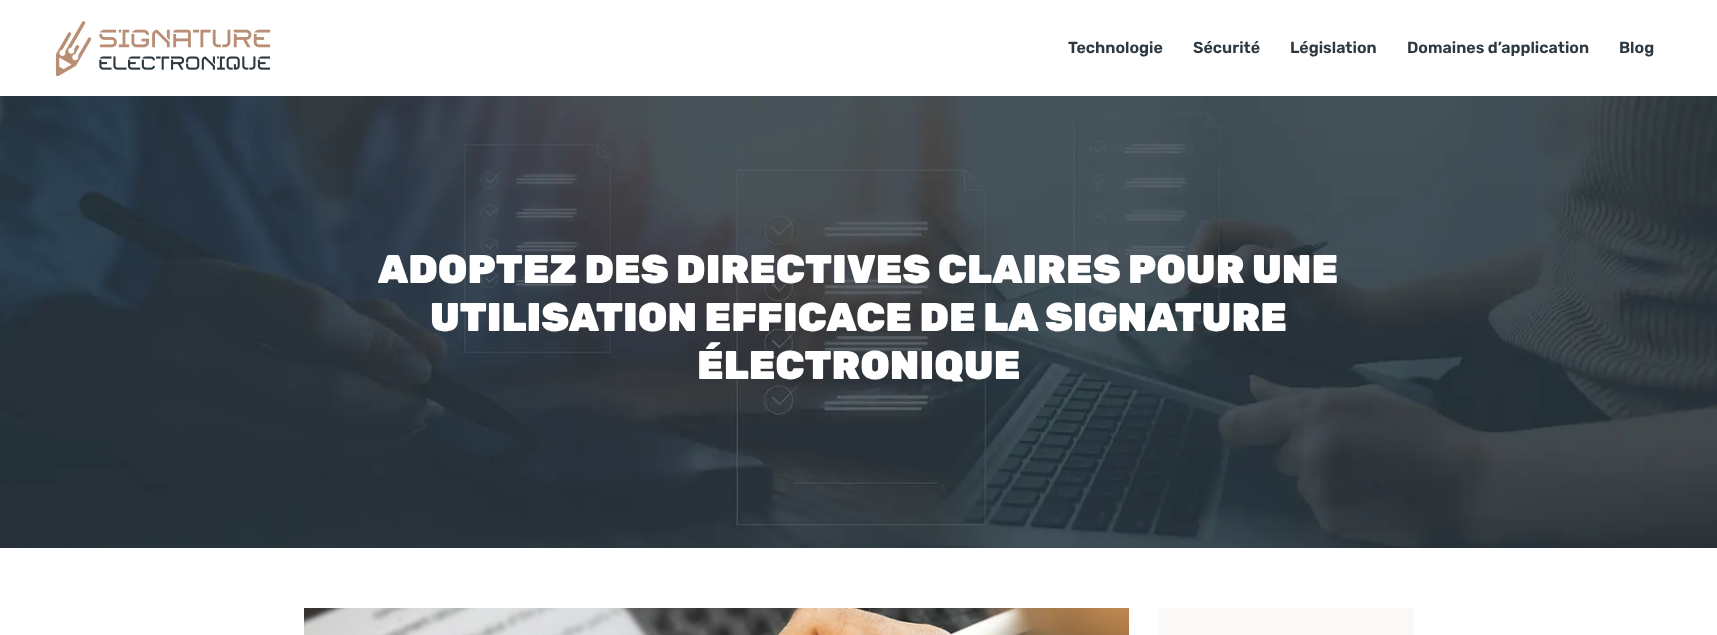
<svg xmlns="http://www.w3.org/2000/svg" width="1717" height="635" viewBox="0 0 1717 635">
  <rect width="100%" height="100%" fill="#fff"/>
  <image x="55" y="21" width="216" height="56" href="img/1.png"/>
  <image x="0" y="96" width="1717" height="452" href="img/2.png"/>
  <image x="304" y="608" width="825" height="27" href="img/3.png"/>
  <path d="M1159 608h255v27H1159z" fill="#fbf9f8"/>
  <g font-family="Rubik" font-size="16" font-weight="600" fill="#2d3941">
    <text x="1068" y="53">Technologie</text>
    <text x="1193" y="53">Sécurité</text>
    <text x="1290" y="53">Législation</text>
    <text x="1407" y="53">Domaines d’application</text>
    <text x="1619" y="53">Blog</text>
  </g>
  <g font-family="Rubik" font-size="40" font-weight="900" fill="#fff">
    <text x="378" y="283">ADOPTEZ DES DIRECTIVES CLAIRES POUR UNE</text>
    <text x="430" y="331">UTILISATION EFFICACE DE LA SIGNATURE</text>
    <text x="697" y="379">ÉLECTRONIQUE</text>
  </g>
</svg>
